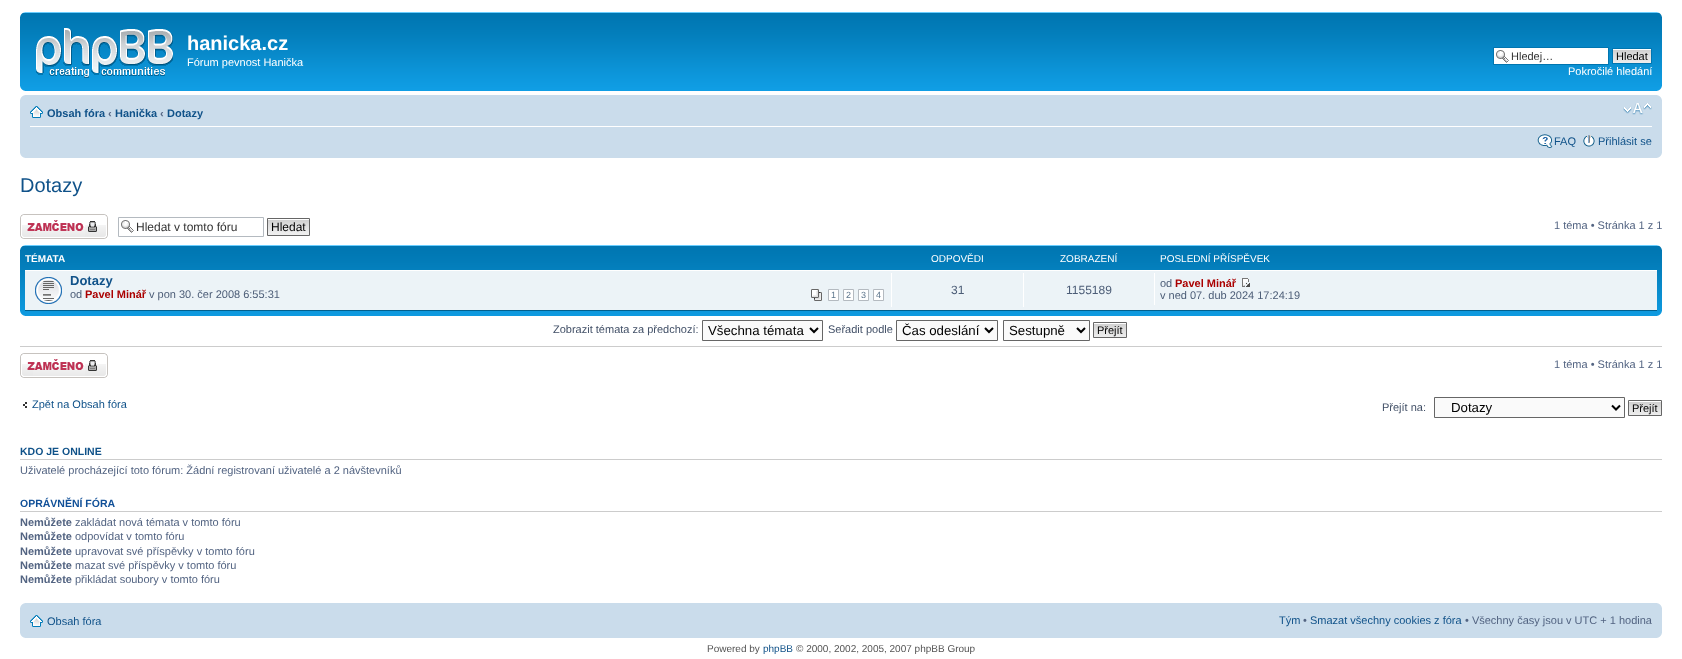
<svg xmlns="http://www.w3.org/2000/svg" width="1682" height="659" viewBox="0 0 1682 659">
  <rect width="100%" height="100%" fill="#fff"/>
  <image x="20" y="12" width="1642" height="79" href="img/1.png"/>
  <image x="20" y="12" width="5" height="5" href="img/2.png"/>
  <image x="1657" y="12" width="5" height="5" href="img/3.png"/>
  <image x="36" y="28" width="137" height="50" href="img/4.png"/>
  <path d="M1494 48h114v16H1494z" fill="#fff"/>
  <image x="1496" y="50" width="13" height="13" href="img/5.png"/>
  <path d="M1493.5 47.5h115v17H1493.5z" fill="none" stroke="#0075b0"/>
  <image x="1613" y="49" width="38" height="14" href="img/6.png"/>
  <path d="M1612.5 48.5h39v15H1612.5z" fill="none" stroke="#0075b0"/>
  <image x="20" y="86" width="5" height="5" href="img/7.png"/>
  <image x="1657" y="86" width="5" height="5" href="img/8.png"/>
  <path d="M20 95h1642v63H20z" fill="#cadceb"/>
  <image x="20" y="95" width="5" height="5" href="img/9.png"/>
  <image x="1657" y="95" width="5" height="5" href="img/10.png"/>
  <path d="M30 126h1622v1H30z" fill="#fff"/>
  <image x="30" y="106" width="13" height="12" href="img/11.png"/>
  <image x="1623" y="103" width="29" height="12" href="img/12.png"/>
  <image x="1537" y="134" width="16" height="14" href="img/13.png"/>
  <image x="1583" y="135" width="12" height="12" href="img/14.png"/>
  <image x="20" y="153" width="5" height="5" href="img/15.png"/>
  <image x="1657" y="153" width="5" height="5" href="img/16.png"/>
  <image x="20" y="214" width="88" height="25" href="img/17.png"/>
  <image x="121" y="220" width="13" height="13" href="img/5.png"/>
  <path d="M118.5 217.5h145v19H118.5z" fill="none" stroke="#b4bac0"/>
  <image x="268" y="219" width="41" height="16" href="img/18.png"/>
  <path d="M267.5 218.5h42v17H267.5z" fill="none" stroke="#666"/>
  <image x="20" y="245" width="1642" height="71" href="img/19.png"/>
  <image x="20" y="245" width="5" height="5" href="img/2.png"/>
  <image x="1657" y="245" width="5" height="5" href="img/3.png"/>
  <path d="M25 271h1632v39H25z" fill="#ecf3f7"/>
  <path d="M25 270h1632v1H25z" fill="#fff"/>
  <path d="M25 310h1632v1H25z" fill="#00608f"/>
  <image x="35" y="277" width="27" height="27" href="img/20.png"/>
  <image x="811" y="289" width="11" height="12" href="img/21.png"/>
  <path d="M828.5 289.5h10v11H828.5z" fill="#fff" stroke="#b4bac0"/>
  <path d="M843.5 289.5h10v11H843.5z" fill="#fff" stroke="#b4bac0"/>
  <path d="M858.5 289.5h10v11H858.5z" fill="#fff" stroke="#b4bac0"/>
  <path d="M873.5 289.5h10v11H873.5z" fill="#fff" stroke="#b4bac0"/>
  <path d="M891 273h1v34H891z" fill="#fff"/>
  <path d="M1023 273h1v34H1023z" fill="#fff"/>
  <path d="M1154 273h1v32H1154z" fill="#fff"/>
  <image x="1242" y="278" width="8" height="9" href="img/22.png"/>
  <image x="20" y="311" width="5" height="5" href="img/23.png"/>
  <image x="1657" y="311" width="5" height="5" href="img/24.png"/>
  <path d="M702.5 320.5h120v20H702.5z" fill="#fafafa" stroke="#666"/>
  <path d="M810 328L814 332L818 328" fill="none" stroke="#000" stroke-width="2"/>
  <path d="M896.5 320.5h101v20H896.5z" fill="#fafafa" stroke="#666"/>
  <path d="M985 328L989 332L993 328" fill="none" stroke="#000" stroke-width="2"/>
  <path d="M1003.5 320.5h86v20H1003.5z" fill="#fafafa" stroke="#666"/>
  <path d="M1077 328L1081 332L1085 328" fill="none" stroke="#000" stroke-width="2"/>
  <image x="1094" y="323" width="32" height="14" href="img/25.png"/>
  <path d="M1093.5 322.5h33v15H1093.5z" fill="none" stroke="#666"/>
  <path d="M20 346h1642v1H20z" fill="#ccc"/>
  <image x="20" y="353" width="88" height="25" href="img/17.png"/>
  <image x="23" y="402" width="4" height="6" href="img/26.png"/>
  <path d="M1434.5 397.5h190v20H1434.5z" fill="#fafafa" stroke="#666"/>
  <path d="M1612 405.5L1616 409.5L1620 405.5" fill="none" stroke="#000" stroke-width="2"/>
  <image x="1629" y="401" width="32" height="14" href="img/25.png"/>
  <path d="M1628.5 400.5h33v15H1628.5z" fill="none" stroke="#666"/>
  <path d="M20 459h1642v1H20z" fill="#ccc"/>
  <path d="M20 511h1642v1H20z" fill="#ccc"/>
  <path d="M20 603h1642v35H20z" fill="#cadceb"/>
  <image x="20" y="603" width="5" height="5" href="img/9.png"/>
  <image x="1657" y="603" width="5" height="5" href="img/10.png"/>
  <image x="30" y="615" width="13" height="12" href="img/11.png"/>
  <image x="20" y="633" width="5" height="5" href="img/15.png"/>
  <image x="1657" y="633" width="5" height="5" href="img/16.png"/>
  <text x="187" y="50" font-family="Liberation Sans" font-size="20" font-weight="bold" fill="#fff">hanicka.cz</text>
  <text x="187" y="66" font-family="Liberation Sans" font-size="11" fill="#fff">Fórum pevnost Hanička</text>
  <text x="1511" y="60" font-family="Liberation Sans" font-size="11" fill="#333">Hledej…</text>
  <text x="1616" y="60" font-family="Liberation Sans" font-size="11" fill="#000">Hledat</text>
  <text x="1568" y="75" font-family="Liberation Sans" font-size="11" fill="#fff">Pokročilé hledání</text>
  <text x="47" y="117" font-family="Liberation Sans" font-size="11" font-weight="bold" fill="#105289">Obsah fóra</text>
  <text x="108" y="117" font-family="Liberation Sans" font-size="11" font-weight="bold" fill="#536482">‹</text>
  <text x="115" y="117" font-family="Liberation Sans" font-size="11" font-weight="bold" fill="#105289">Hanička</text>
  <text x="160" y="117" font-family="Liberation Sans" font-size="11" font-weight="bold" fill="#536482">‹</text>
  <text x="167" y="117" font-family="Liberation Sans" font-size="11" font-weight="bold" fill="#105289">Dotazy</text>
  <g font-family="Liberation Sans" font-size="11" fill="#105289">
    <text x="1554" y="145">FAQ</text>
    <text x="1598" y="145">Přihlásit se</text>
  </g>
  <text x="20" y="192" font-family="Liberation Sans" font-size="20" fill="#105289">Dotazy</text>
  <text x="136" y="231" font-family="Liberation Sans" font-size="12" fill="#333">Hledat v tomto fóru</text>
  <text x="271" y="231" font-family="Liberation Sans" font-size="12" fill="#000">Hledat</text>
  <text x="1554" y="229" font-family="Liberation Sans" font-size="11" fill="#536482">1 téma • Stránka 1 z 1</text>
  <text x="25" y="262" font-family="Liberation Sans" font-size="10" font-weight="bold" fill="#fff">TÉMATA</text>
  <g font-family="Liberation Sans" font-size="10" fill="#fff">
    <text x="931" y="262">ODPOVĚDI</text>
    <text x="1060" y="262">ZOBRAZENÍ</text>
    <text x="1160" y="262">POSLEDNÍ PŘÍSPĚVEK</text>
  </g>
  <text x="70" y="285" font-family="Liberation Sans" font-size="13" font-weight="bold" fill="#105289">Dotazy</text>
  <text x="70" y="298" font-family="Liberation Sans" font-size="11" fill="#4c5d77">od</text>
  <text x="85" y="298" font-family="Liberation Sans" font-size="11" font-weight="bold" fill="#a00">Pavel Minář</text>
  <text x="149" y="298" font-family="Liberation Sans" font-size="11" fill="#4c5d77">v pon 30. čer 2008 6:55:31</text>
  <g font-family="Liberation Sans" font-size="9" fill="#5c758c">
    <text x="831" y="298">1</text>
    <text x="846" y="298">2</text>
    <text x="861" y="298">3</text>
    <text x="876" y="298">4</text>
  </g>
  <g font-family="Liberation Sans" font-size="12" fill="#4c5d77">
    <text x="951" y="294">31</text>
    <text x="1066" y="294">1155189</text>
  </g>
  <text x="1160" y="287" font-family="Liberation Sans" font-size="11" fill="#4c5d77">od</text>
  <text x="1175" y="287" font-family="Liberation Sans" font-size="11" font-weight="bold" fill="#a00">Pavel Minář</text>
  <text x="1160" y="299" font-family="Liberation Sans" font-size="11" fill="#4c5d77">v ned 07. dub 2024 17:24:19</text>
  <text x="553" y="333" font-family="Liberation Sans" font-size="11" fill="#425067">Zobrazit témata za předchozí:</text>
  <text x="708" y="335" font-family="Liberation Sans" font-size="13.25" fill="#000">Všechna témata</text>
  <text x="828" y="333" font-family="Liberation Sans" font-size="11" fill="#425067">Seřadit podle</text>
  <g font-family="Liberation Sans" font-size="13.25" fill="#000">
    <text x="902" y="335">Čas odeslání</text>
    <text x="1009" y="335">Sestupně</text>
  </g>
  <text x="1097" y="334" font-family="Liberation Sans" font-size="11" fill="#000">Přejít</text>
  <text x="1554" y="368" font-family="Liberation Sans" font-size="11" fill="#536482">1 téma • Stránka 1 z 1</text>
  <text x="32" y="408" font-family="Liberation Sans" font-size="11" fill="#105289">Zpět na Obsah fóra</text>
  <text x="1382" y="411" font-family="Liberation Sans" font-size="11" fill="#425067">Přejít na:</text>
  <text x="1451" y="412" font-family="Liberation Sans" font-size="13.25" fill="#000">Dotazy</text>
  <text x="1632" y="412" font-family="Liberation Sans" font-size="11" fill="#000">Přejít</text>
  <text x="20" y="455" font-family="Liberation Sans" font-size="10.5" font-weight="bold" fill="#105289">KDO JE ONLINE</text>
  <text x="20" y="474" font-family="Liberation Sans" font-size="11" fill="#536482">Uživatelé procházející toto fórum: Žádní registrovaní uživatelé a 2 návštevníků</text>
  <text x="20" y="507" font-family="Liberation Sans" font-size="10.5" font-weight="bold" fill="#115098">OPRÁVNĚNÍ FÓRA</text>
  <text x="20" y="526" font-family="Liberation Sans" font-size="11" font-weight="bold" fill="#536482">Nemůžete</text>
  <text x="75" y="526" font-family="Liberation Sans" font-size="11" fill="#536482">zakládat nová témata v tomto fóru</text>
  <text x="20" y="540" font-family="Liberation Sans" font-size="11" font-weight="bold" fill="#536482">Nemůžete</text>
  <text x="75" y="540" font-family="Liberation Sans" font-size="11" fill="#536482">odpovídat v tomto fóru</text>
  <text x="20" y="555" font-family="Liberation Sans" font-size="11" font-weight="bold" fill="#536482">Nemůžete</text>
  <text x="75" y="555" font-family="Liberation Sans" font-size="11" fill="#536482">upravovat své příspěvky v tomto fóru</text>
  <text x="20" y="569" font-family="Liberation Sans" font-size="11" font-weight="bold" fill="#536482">Nemůžete</text>
  <text x="75" y="569" font-family="Liberation Sans" font-size="11" fill="#536482">mazat své příspěvky v tomto fóru</text>
  <text x="20" y="583" font-family="Liberation Sans" font-size="11" font-weight="bold" fill="#536482">Nemůžete</text>
  <text x="75" y="583" font-family="Liberation Sans" font-size="11" fill="#536482">přikládat soubory v tomto fóru</text>
  <g font-family="Liberation Sans" font-size="11" fill="#105289">
    <text x="47" y="625">Obsah fóra</text>
    <text x="1279" y="624">Tým</text>
  </g>
  <text x="1303" y="624" font-family="Liberation Sans" font-size="11" fill="#536482">•</text>
  <text x="1310" y="624" font-family="Liberation Sans" font-size="11" fill="#105289">Smazat všechny cookies z fóra</text>
  <text x="1465" y="624" font-family="Liberation Sans" font-size="11" fill="#536482">• Všechny časy jsou v UTC + 1 hodina</text>
  <text x="707" y="652" font-family="Liberation Sans" font-size="10" fill="#555">Powered by</text>
  <text x="763" y="652" font-family="Liberation Sans" font-size="10" fill="#105289">phpBB</text>
  <text x="796" y="652" font-family="Liberation Sans" font-size="10" fill="#555">© 2000, 2002, 2005, 2007 phpBB Group</text>
</svg>
